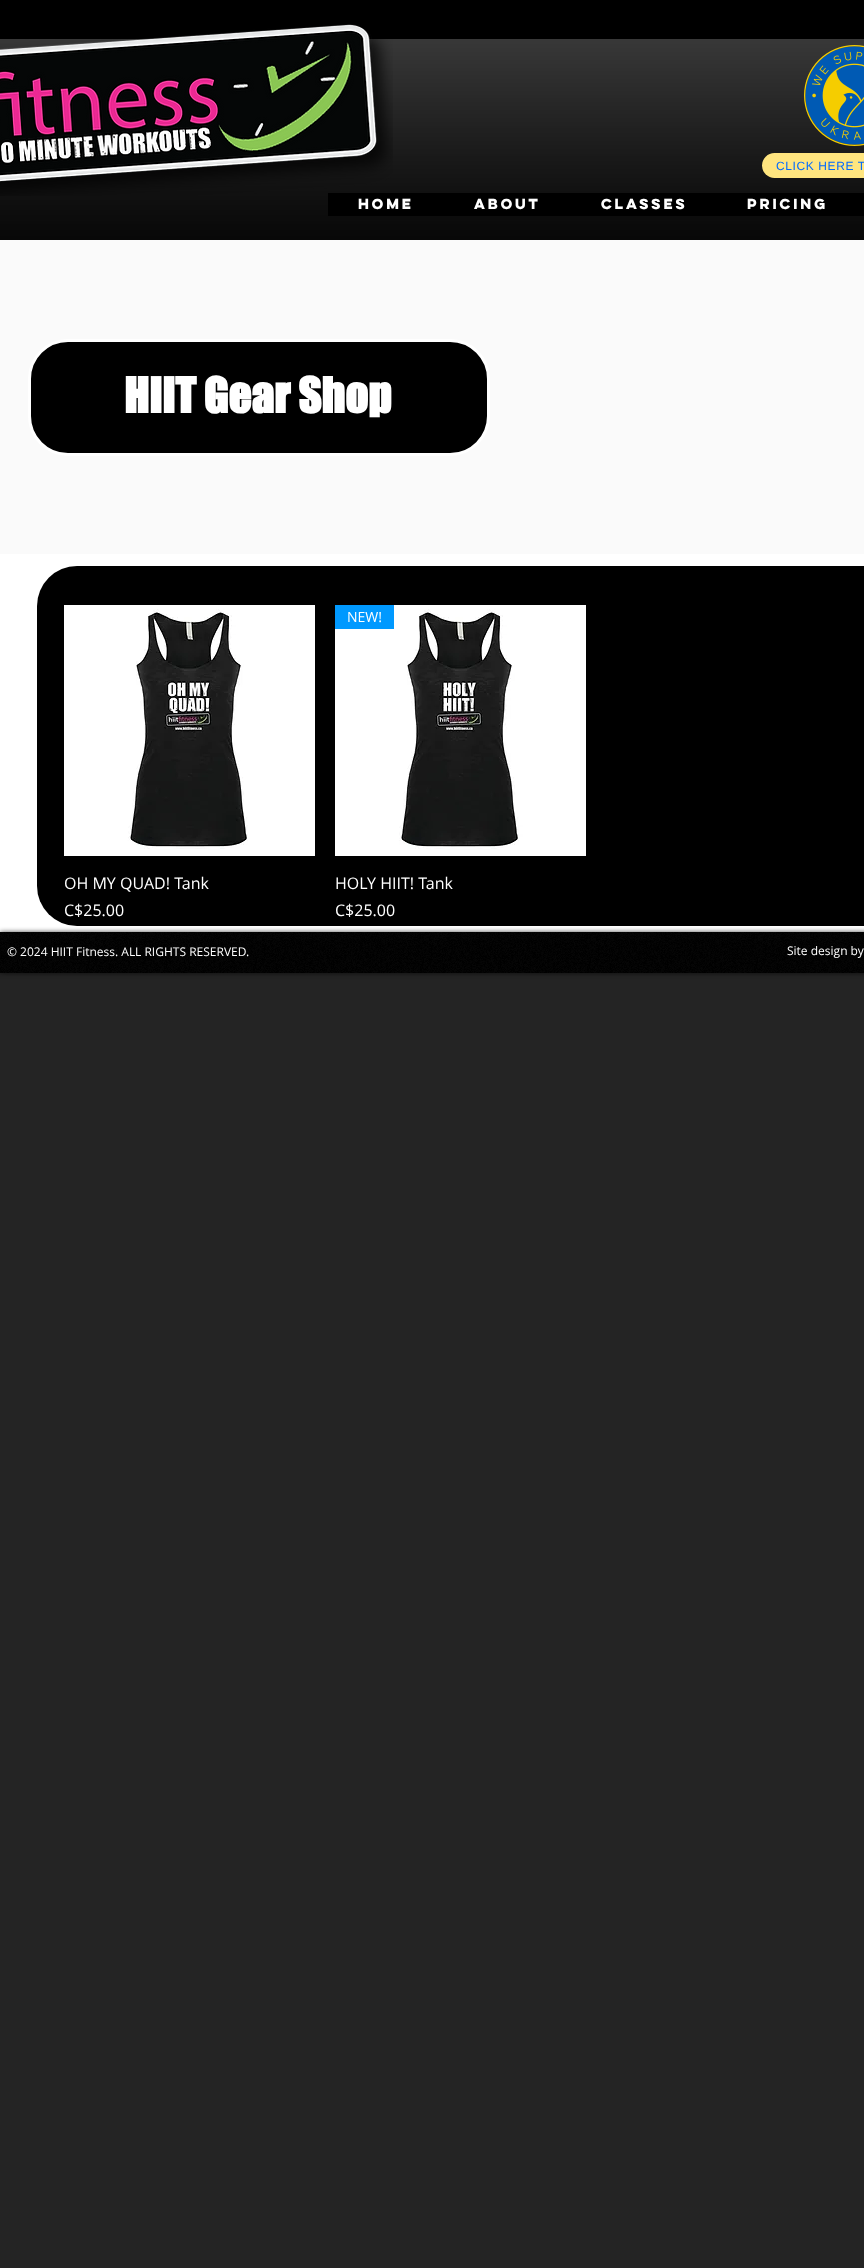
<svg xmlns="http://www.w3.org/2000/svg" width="864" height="2268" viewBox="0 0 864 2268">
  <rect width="100%" height="100%" fill="#242424"/>
  <path d="M0 0h864v240H0z" fill="#000"/>
  <image x="0" y="39" width="864" height="201" href="img/1.png"/>
  <path d="M328 193h536v23H328z" fill="#000"/>
  <image x="0" y="24" width="393" height="172" href="img/2.png"/>
  <image x="804" y="45" width="60" height="101" href="img/3.png"/>
  <rect x="762" y="153" width="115" height="25" rx="12.5" fill="#ffe57f"/>
  <path d="M0 240h864v314H0z" fill="#fafafa"/>
  <rect x="29.5" y="340.5" width="459" height="114" rx="38.5" fill="#000" stroke="#fff" stroke-width="3"/>
  <path d="M0 554h864v378H0z" fill="#fff"/>
  <rect x="37" y="566" width="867" height="360" rx="40" fill="#000"/>
  <image x="64" y="605" width="251" height="251" href="img/4.png"/>
  <image x="335" y="605" width="251" height="251" href="img/5.png"/>
  <path d="M335 605h59v24H335z" fill="#09f"/>
  <path d="M0 932h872v41H0z" fill="#000000b3" filter="blur(2.5px)"/>
  <path d="M0 932h864v41H0z" fill="#000"/>
  <image x="0" y="932" width="864" height="41" href="img/6.png"/>
  <text x="776" y="170" font-family="Liberation Sans" font-size="12" letter-spacing="0.6" fill="#0069ff">CLICK HERE T</text>
  <g font-family="'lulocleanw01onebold'" font-size="13" font-weight="bold" fill="#fff">
    <text x="358" y="209">Home</text>
    <text x="474" y="209">About</text>
    <text x="601" y="209">Classes</text>
    <text x="747" y="209">Pricing</text>
  </g>
  <text x="124" y="413" font-family="'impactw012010'" font-size="45" font-weight="bold" fill="#fff">HIIT Gear Shop</text>
  <g font-family="Open Sans" font-size="16" fill="#fff">
    <text x="64" y="889">OH MY QUAD! Tank</text>
    <text x="64" y="916">C$25.00</text>
  </g>
  <text x="347" y="622" font-family="Open Sans" font-size="14" fill="#fff">NEW!</text>
  <g font-family="Open Sans" font-size="16" fill="#fff">
    <text x="335" y="889">HOLY HIIT! Tank</text>
    <text x="335" y="916">C$25.00</text>
  </g>
  <g font-family="Open Sans" font-size="12" fill="#fff">
    <text x="7" y="956">© 2024 HIIT Fitness. ALL RIGHTS RESERVED.</text>
    <text x="787" y="955">Site design by</text>
  </g>
</svg>
